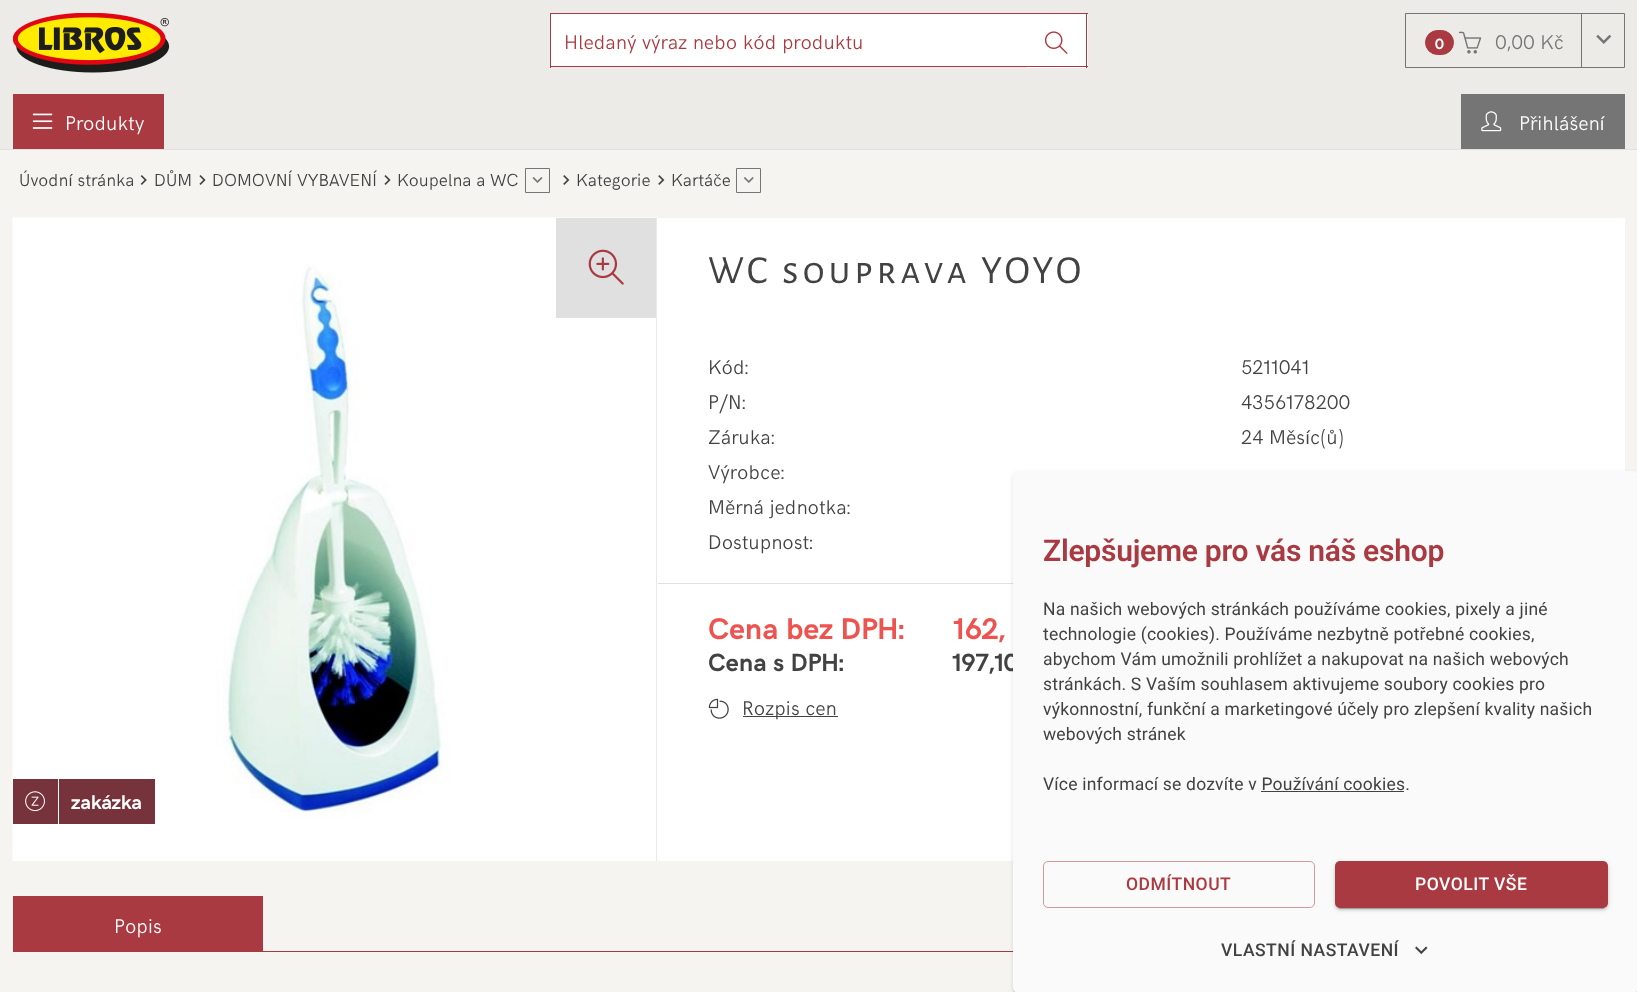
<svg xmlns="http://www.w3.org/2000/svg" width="1637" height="992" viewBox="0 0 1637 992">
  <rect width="100%" height="100%" fill="#f5f4f0"/>
  <path d="M0 0h1637v149H0z" fill="#edebe7"/>
  <path d="M0 149h1637v1H0z" fill="#e0e0e0"/>
  <image x="13" y="13" width="157" height="60" href="img/1.png"/>
  <path d="M551 14h475v52H551z" fill="#fff"/>
  <path d="M550 13h538v1H550z" fill="#aa3a41"/>
  <path d="M550 66h478v1H550z" fill="#aa3a41"/>
  <path d="M550 13h1v55H550z" fill="#aa3a41"/>
  <path d="M1026 14h62v54H1026z" fill="#fff"/>
  <path d="M1086 13h1v55H1086z" fill="#aa3a41"/>
  <path d="M1026 66h62v1H1026z" fill="#aa3a41"/>
  <image x="1044" y="31" width="24" height="23" href="img/2.png"/>
  <path d="M1405.5 13.5h219v54H1405.5z" fill="none" stroke="#757575"/>
  <rect x="1425.5" y="30.5" width="28" height="24" rx="12" fill="#aa3a41" stroke="#aa3a41"/>
  <image x="1458" y="31" width="24" height="23" href="img/3.png"/>
  <path d="M1581 13h1v55H1581z" fill="#757575"/>
  <image x="1596" y="34" width="16" height="10" href="img/4.png"/>
  <path d="M13 94h151v55H13z" fill="#aa3a41"/>
  <image x="32" y="113" width="21" height="16" href="img/5.png"/>
  <path d="M1461 94h164v55H1461z" fill="#757575"/>
  <image x="1481" y="111" width="21" height="21" href="img/6.png"/>
  <image x="140" y="175" width="7" height="10" href="img/7.png"/>
  <image x="199" y="175" width="7" height="10" href="img/8.png"/>
  <image x="384" y="175" width="7" height="10" href="img/8.png"/>
  <path d="M525.5 168.5h24v24H525.5z" fill="none" stroke="#757575"/>
  <image x="532" y="177" width="11" height="6" href="img/9.png"/>
  <image x="563" y="175" width="7" height="10" href="img/10.png"/>
  <image x="658" y="175" width="7" height="10" href="img/10.png"/>
  <path d="M736.5 168.5h24v24H736.5z" fill="none" stroke="#757575"/>
  <image x="743" y="177" width="11" height="6" href="img/11.png"/>
  <path d="M657 218h968v643H657z" fill="#fff"/>
  <path d="M658 583h355v1H658z" fill="#e0e0e0"/>
  <image x="708" y="698" width="21" height="21" href="img/12.png"/>
  <path d="M743 716h95v1H743z" fill="#424242"/>
  <path d="M656 218h1v643H656z" fill="#e0e0e0"/>
  <image x="12" y="217" width="645" height="644" href="img/13.png"/>
  <path d="M556 218h100v100H556z" fill="#e0e0e0"/>
  <image x="588" y="249" width="36" height="36" href="img/14.png"/>
  <path d="M13 779h142v45H13z" fill="#77333b"/>
  <image x="25" y="791" width="20" height="21" href="img/15.png"/>
  <path d="M58 779h1v45H58z" fill="#fff"/>
  <path d="M13 951h1000v1H13z" fill="#aa3a41"/>
  <path d="M13 896h250v55H13z" fill="#aa3a41"/>
  <rect x="1013" y="473" width="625" height="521" rx="5" fill="#0000001f" filter="blur(2px)"/>
  <rect x="1013" y="473" width="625" height="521" rx="5" fill="#00000024" filter="blur(0.5px)"/>
  <rect x="1014" y="475" width="622" height="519" rx="4" fill="#00000033" filter="blur(0.5px)"/>
  <text x="564" y="49" font-family="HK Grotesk" font-size="20" font-weight="300" fill="#aa3a41">Hledaný výraz nebo kód produktu</text>
  <text x="1435" y="49" font-family="HK Grotesk" font-size="15" font-weight="bold" fill="#fff">0</text>
  <text x="1495" y="49" font-family="HK Grotesk" font-size="20" font-weight="300" fill="#757575">0,00 Kč</text>
  <g font-family="HK Grotesk" font-size="20" font-weight="300" fill="#fff">
    <text x="65" y="130">Produkty</text>
    <text x="1519" y="130">Přihlášení</text>
  </g>
  <g font-family="HK Grotesk" font-size="17.5" font-weight="300" fill="#424242">
    <text x="19" y="186">Úvodní stránka</text>
    <text x="154" y="186">DŮM</text>
    <text x="212" y="186">DOMOVNÍ VYBAVENÍ</text>
    <text x="397" y="186">Koupelna a WC</text>
    <text x="576" y="186">Kategorie</text>
    <text x="671" y="186">Kartáče</text>
  </g>
  <text x="708" y="283" font-family="Alegreya Sans SC" font-size="40" letter-spacing="3.75" fill="#424242">WC souprava YOYO</text>
  <g font-family="HK Grotesk" font-size="20" font-weight="300" fill="#424242">
    <text x="708" y="374">Kód:</text>
    <text x="1241" y="374">5211041</text>
    <text x="708" y="409">P/N:</text>
    <text x="1241" y="409">4356178200</text>
    <text x="708" y="444">Záruka:</text>
    <text x="1241" y="444">24 Měsíc(ů)</text>
    <text x="708" y="479">Výrobce:</text>
    <text x="708" y="514">Měrná jednotka:</text>
    <text x="708" y="549">Dostupnost:</text>
  </g>
  <g font-family="HK Grotesk" font-size="30" font-weight="bold" fill="#ef5350">
    <text x="708" y="639">Cena bez DPH:</text>
    <text x="953" y="639">162,</text>
  </g>
  <g font-family="HK Grotesk" font-size="25" font-weight="bold" fill="#424242">
    <text x="708" y="671">Cena s DPH:</text>
    <text x="952" y="671">197,10</text>
  </g>
  <text x="742" y="715" font-family="HK Grotesk" font-size="20" font-weight="300" fill="#424242">Rozpis cen</text>
  <text x="71" y="809" font-family="HK Grotesk" font-size="20" font-weight="bold" fill="#fff">zakázka</text>
  <text x="114" y="933" font-family="HK Grotesk" font-size="20" font-weight="300" fill="#fff">Popis</text>
  <rect x="1013" y="471" width="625" height="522" rx="5" fill="#fafafa"/>
  <text x="1043" y="561" font-family="Roboto" font-size="30" font-weight="600" letter-spacing="-0.25" fill="#aa3a41">Zlepšujeme pro vás náš eshop</text>
  <g font-family="Roboto" font-size="17.5" letter-spacing="0.2" fill="#424242">
    <text x="1043" y="615">Na našich webových stránkách používáme cookies, pixely a jiné</text>
    <text x="1043" y="640">technologie (cookies). Používáme nezbytně potřebné cookies,</text>
    <text x="1043" y="665">abychom Vám umožnili prohlížet a nakupovat na našich webových</text>
    <text x="1043" y="690">stránkách. S Vaším souhlasem aktivujeme soubory cookies pro</text>
    <text x="1043" y="715">výkonnostní, funkční a marketingové účely pro zlepšení kvality našich</text>
    <text x="1043" y="740">webových stránek</text>
    <text x="1043" y="790">Více informací se dozvíte v Používání cookies.</text>
  </g>
  <path d="M1261 791h143v1H1261z" fill="#424242"/>
  <rect x="1043.5" y="861.5" width="271" height="46" rx="4.5" fill="none" stroke="#d29a9e"/>
  <text x="1126" y="890" font-family="Roboto" font-size="17.5" font-weight="500" letter-spacing="0.5" fill="#aa3a41">ODMÍTNOUT</text>
  <rect x="1335" y="863" width="273" height="46" rx="5" fill="#0000001f" filter="blur(3px)"/>
  <rect x="1335" y="864" width="273" height="46" rx="5" fill="#00000024" filter="blur(1px)"/>
  <rect x="1338" y="868" width="267" height="41" rx="2.5" fill="#00000033" filter="blur(0.5px)"/>
  <rect x="1335" y="861" width="273" height="47" rx="5" fill="#aa3a41"/>
  <text x="1415" y="890" font-family="Roboto" font-size="17.5" font-weight="500" letter-spacing="0.5" fill="#fff">POVOLIT VŠE</text>
  <text x="1221" y="956" font-family="Roboto" font-size="17.5" font-weight="500" letter-spacing="0.5" fill="#424242">VLASTNÍ NASTAVENÍ</text>
  <image x="1415" y="946" width="13" height="9" href="img/16.png"/>
</svg>
